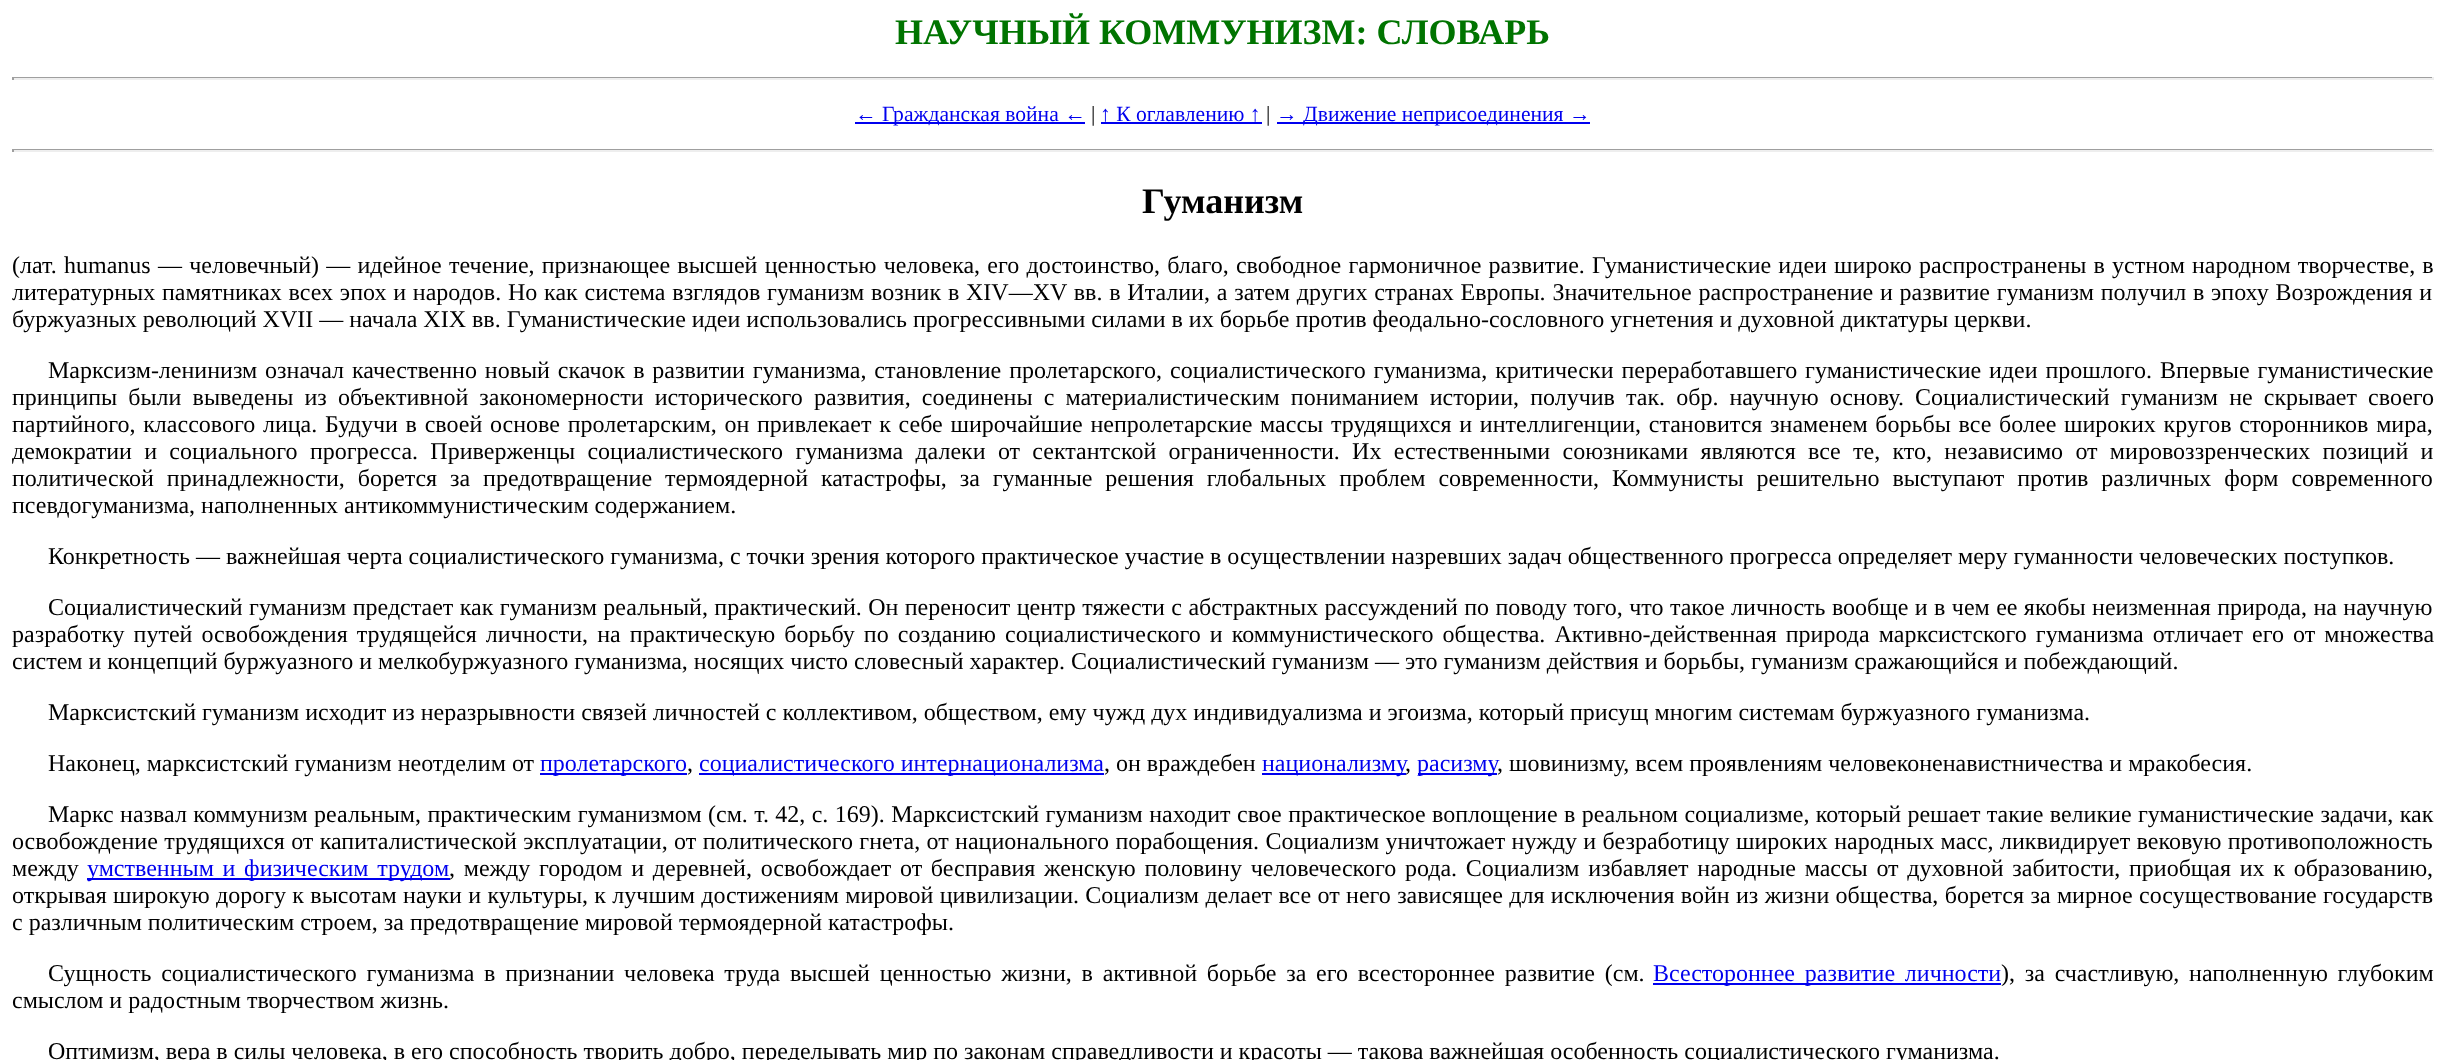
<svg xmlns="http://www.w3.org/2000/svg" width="2444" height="1060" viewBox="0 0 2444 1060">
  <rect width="100%" height="100%" fill="#fff"/>
  <path d="M12 77h2421v1H12z" fill="#9f9f9f"/>
  <path d="M2432 77h2v3H2432z" fill="#eee"/>
  <path d="M12 78h2421v2H12z" fill="#eee"/>
  <path d="M12 77h2v3H12z" fill="#9f9f9f"/>
  <path d="M855 122h230v2H855z" fill="#00e"/>
  <path d="M1101 122h161v2H1101z" fill="#00e"/>
  <path d="M1277 122h313v2H1277z" fill="#00e"/>
  <path d="M12 149h2421v1H12z" fill="#9f9f9f"/>
  <path d="M2432 149h2v3H2432z" fill="#eee"/>
  <path d="M12 150h2421v2H12z" fill="#eee"/>
  <path d="M12 149h2v3H12z" fill="#9f9f9f"/>
  <path d="M540 773h147v2H540z" fill="#00e"/>
  <path d="M699 773h405v2H699z" fill="#00e"/>
  <path d="M1262 773h144v2H1262z" fill="#00e"/>
  <path d="M1418 773h79v2H1418z" fill="#00e"/>
  <path d="M87 878h363v2H87z" fill="#00e"/>
  <path d="M1653 983h348v2H1653z" fill="#00e"/>
  <text x="895" y="44" font-family="Liberation Serif" font-size="36" font-weight="bold" fill="#007400">НАУЧНЫЙ КОММУНИЗМ: СЛОВАРЬ</text>
  <text x="855" y="121" font-family="Liberation Serif" font-size="21.6" fill="#00e">← Гражданская война ←</text>
  <text x="1091" y="121" font-family="Liberation Serif" font-size="21.6" fill="#000">|</text>
  <text x="1100" y="121" font-family="Liberation Serif" font-size="21.6" fill="#00e">↑ К оглавлению ↑</text>
  <text x="1266" y="121" font-family="Liberation Serif" font-size="21.6" fill="#000">|</text>
  <text x="1276" y="121" font-family="Liberation Serif" font-size="21.6" fill="#00e">→ Движение неприсоединения →</text>
  <text x="1142" y="213" font-family="Liberation Serif" font-size="36" font-weight="bold" fill="#000">Гуманизм</text>
  <g font-family="Liberation Serif" font-size="24" fill="#000">
    <text x="12" y="273">(лат.</text>
    <text x="64" y="273">humanus</text>
    <text x="158" y="273" word-spacing="1.2">— человечный) — идейное течение, признающее высшей ценностью человека, его достоинство, благо, свободное гармоничное развитие. Гуманистические идеи широко распространены в устном народном творчестве, в</text>
    <text x="12" y="300" word-spacing="0.8">литературных памятниках всех эпох и народов. Но как система взглядов гуманизм возник в XIV—XV вв. в Италии, а затем других странах Европы. Значительное распространение и развитие гуманизм получил в эпоху Возрождения и</text>
    <text x="12" y="327">буржуазных революций XVII — начала XIX вв. Гуманистические идеи использовались прогрессивными силами в их борьбе против феодально-сословного угнетения и духовной диктатуры церкви.</text>
    <text x="48" y="378" word-spacing="1.9">Марксизм-ленинизм означал качественно новый скачок в развитии гуманизма, становление пролетарского, социалистического гуманизма, критически переработавшего гуманистические идеи прошлого. Впервые гуманистические</text>
    <text x="12" y="405" word-spacing="5.1">принципы были выведены из объективной закономерности исторического развития, соединены с материалистическим пониманием истории, получив так. обр. научную основу. Социалистический гуманизм не скрывает своего</text>
    <text x="12" y="432" word-spacing="1.75">партийного, классового лица. Будучи в своей основе пролетарским, он привлекает к себе широчайшие непролетарские массы трудящихся и интеллигенции, становится знаменем борьбы все более широких кругов сторонников мира,</text>
    <text x="12" y="459" word-spacing="6.3">демократии и социального прогресса. Приверженцы социалистического гуманизма далеки от сектантской ограниченности. Их естественными союзниками являются все те, кто, независимо от мировоззренческих позиций и</text>
    <text x="12" y="486" word-spacing="6.9">политической принадлежности, борется за предотвращение термоядерной катастрофы, за гуманные решения глобальных проблем современности, Коммунисты решительно выступают против различных форм современного</text>
    <text x="12" y="513">псевдогуманизма, наполненных антикоммунистическим содержанием.</text>
    <text x="48" y="564">Конкретность — важнейшая черта социалистического гуманизма, с точки зрения которого практическое участие в осуществлении назревших задач общественного прогресса определяет меру гуманности человеческих поступков.</text>
    <text x="48" y="615" word-spacing="0.4">Социалистический гуманизм предстает как гуманизм реальный, практический. Он переносит центр тяжести с абстрактных рассуждений по поводу того, что такое личность вообще и в чем ее якобы неизменная природа, на научную</text>
    <text x="12" y="642" word-spacing="3.1">разработку путей освобождения трудящейся личности, на практическую борьбу по созданию социалистического и коммунистического общества. Активно-действенная природа марксистского гуманизма отличает его от множества</text>
    <text x="12" y="669">систем и концепций буржуазного и мелкобуржуазного гуманизма, носящих чисто словесный характер. Социалистический гуманизм — это гуманизм действия и борьбы, гуманизм сражающийся и побеждающий.</text>
    <text x="48" y="720">Марксистский гуманизм исходит из неразрывности связей личностей с коллективом, обществом, ему чужд дух индивидуализма и эгоизма, который присущ многим системам буржуазного гуманизма.</text>
    <text x="48" y="771">Наконец, марксистский гуманизм неотделим от</text>
  </g>
  <text x="540" y="771" font-family="Liberation Serif" font-size="24" fill="#00e">пролетарского</text>
  <text x="687" y="771" font-family="Liberation Serif" font-size="24" fill="#000">,</text>
  <text x="699" y="771" font-family="Liberation Serif" font-size="24" fill="#00e">социалистического интернационализма</text>
  <text x="1104" y="771" font-family="Liberation Serif" font-size="24" fill="#000">, он враждебен</text>
  <g font-family="Liberation Serif" font-size="24" fill="#00e">
    <text x="1262" y="771">национализму</text>
    <text x="1417" y="771">расизму</text>
  </g>
  <g font-family="Liberation Serif" font-size="24" fill="#000">
    <text x="1497" y="771">, шовинизму, всем проявлениям человеконенавистничества и мракобесия.</text>
    <text x="1405" y="771">,</text>
    <text x="48" y="822" word-spacing="0.4">Маркс назвал коммунизм реальным, практическим гуманизмом (см. т. 42, с. 169). Марксистский гуманизм находит свое практическое воплощение в реальном социализме, который решает такие великие гуманистические задачи, как</text>
    <text x="12" y="849" word-spacing="0.4">освобождение трудящихся от капиталистической эксплуатации, от политического гнета, от национального порабощения. Социализм уничтожает нужду и безработицу широких народных масс, ликвидирует вековую противоположность</text>
    <text x="12" y="876">между</text>
  </g>
  <text x="87" y="876" word-spacing="2.7" font-family="Liberation Serif" font-size="24" fill="#00e">умственным и физическим трудом</text>
  <g font-family="Liberation Serif" font-size="24" fill="#000">
    <text x="449" y="876" word-spacing="2.7">, между городом и деревней, освобождает от бесправия женскую половину человеческого рода. Социализм избавляет народные массы от духовной забитости, приобщая их к образованию,</text>
    <text x="12" y="903" word-spacing="0.35">открывая широкую дорогу к высотам науки и культуры, к лучшим достижениям мировой цивилизации. Социализм делает все от него зависящее для исключения войн из жизни общества, борется за мирное сосуществование государств</text>
    <text x="12" y="930">с различным политическим строем, за предотвращение мировой термоядерной катастрофы.</text>
    <text x="48" y="981" word-spacing="3.75">Сущность социалистического гуманизма в признании человека труда высшей ценностью жизни, в активной борьбе за его всестороннее развитие (см.</text>
  </g>
  <text x="1653" y="981" word-spacing="3.75" font-family="Liberation Serif" font-size="24" fill="#00e">Всестороннее развитие личности</text>
  <g font-family="Liberation Serif" font-size="24" fill="#000">
    <text x="2001" y="981" word-spacing="3.75">), за счастливую, наполненную глубоким</text>
    <text x="12" y="1008">смыслом и радостным творчеством жизнь.</text>
    <text x="48" y="1059">Оптимизм, вера в силы человека, в его способность творить добро, переделывать мир по законам справедливости и красоты — такова важнейшая особенность социалистического гуманизма.</text>
  </g>
</svg>
